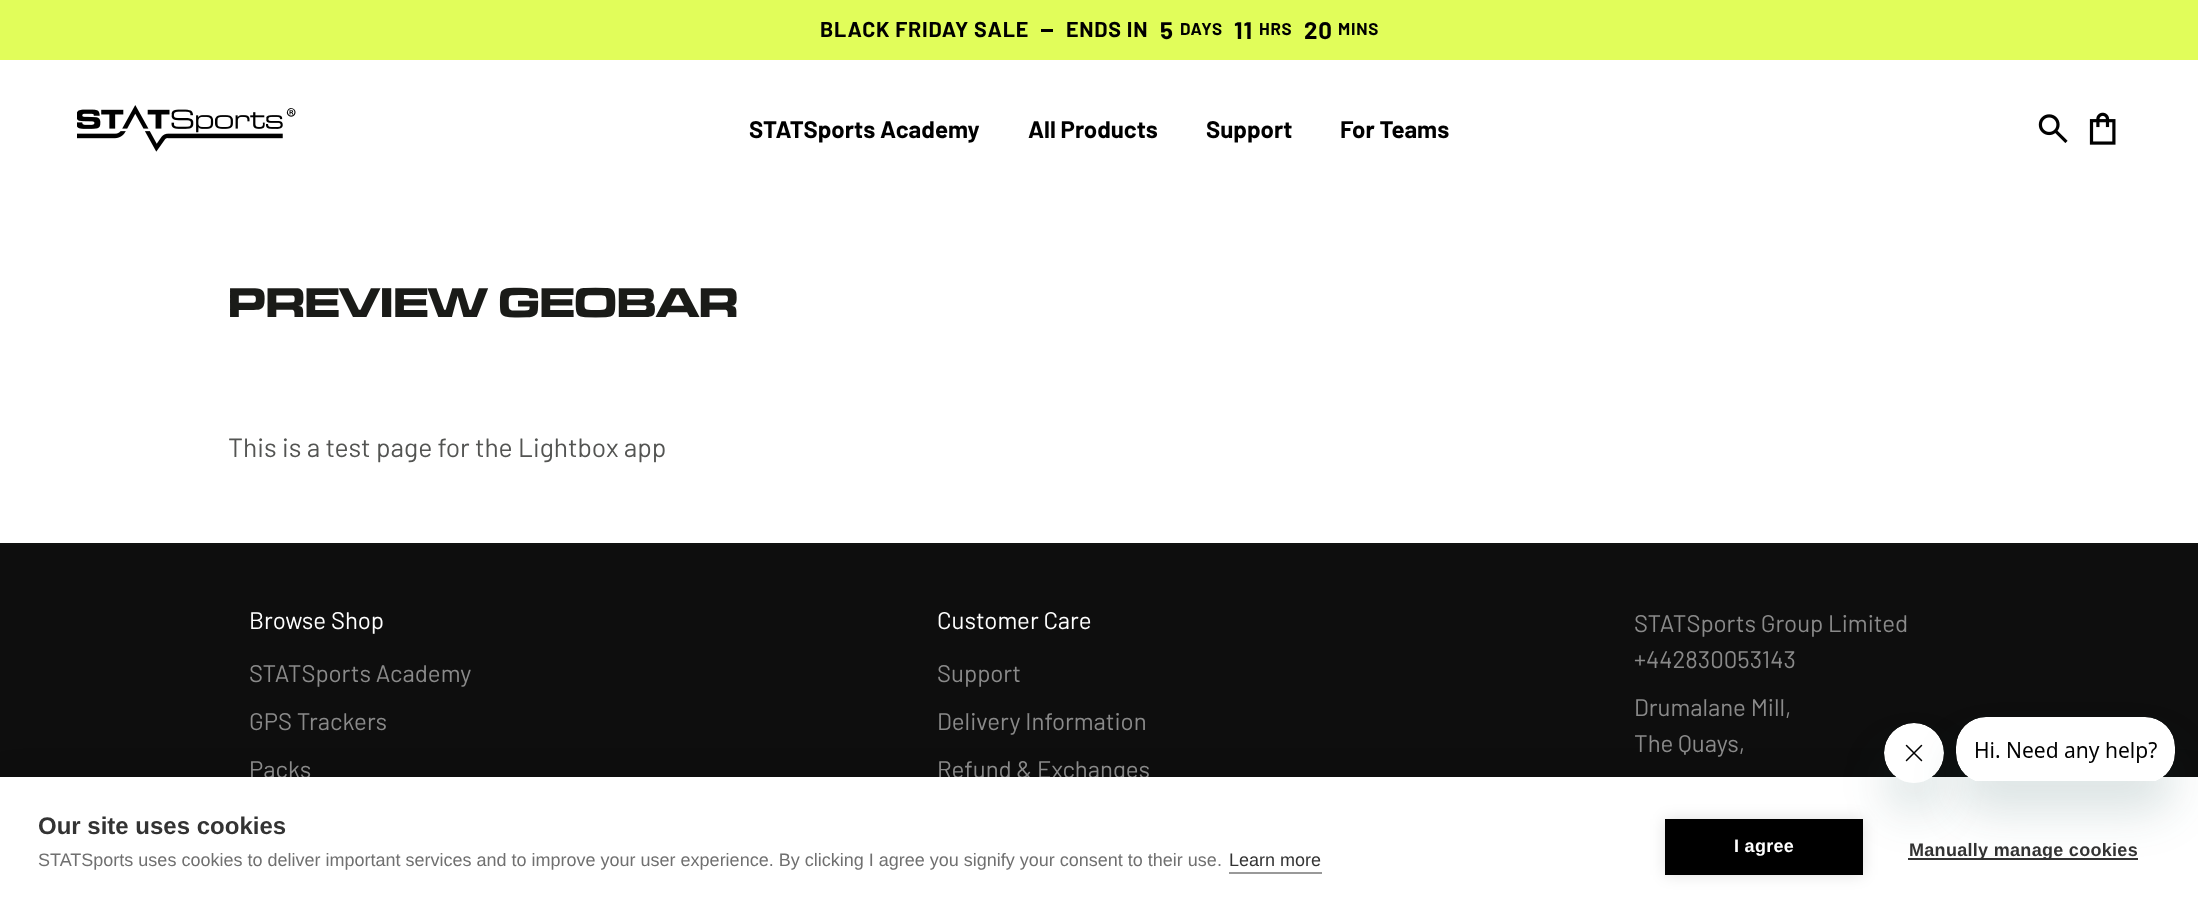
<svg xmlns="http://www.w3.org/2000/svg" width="2198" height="914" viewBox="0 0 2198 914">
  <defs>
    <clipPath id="clip1"><path d="M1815 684H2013V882H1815ZM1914 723C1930.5 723 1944 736.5 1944 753C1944 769.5 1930.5 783 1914 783C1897.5 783 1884 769.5 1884 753C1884 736.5 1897.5 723 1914 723Z" clip-rule="evenodd"/></clipPath>
  </defs>
  <rect width="100%" height="100%" fill="#fff"/>
  <path d="M0 0h2198v60H0z" fill="#e1fd5a"/>
  <path d="M1041 29h12v3H1041z" fill="#000"/>
  <image x="77" y="105" width="219" height="47" href="img/1.png"/>
  <image x="2038" y="114" width="30" height="29" href="img/2.png"/>
  <image x="2089" y="112" width="27" height="33" href="img/3.png"/>
  <path d="M0 545h2198v232H0z" fill="#0e0e0e"/>
  <path d="M0 543h2198v2H0z" fill="#101110"/>
  <path d="M0 777h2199v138H0z" fill="#0000001a" filter="blur(15px)"/>
  <g font-family="Barlow" font-size="21.5" font-weight="bold" letter-spacing="0.75" fill="#000">
    <text x="820" y="37">BLACK FRIDAY SALE</text>
    <text x="1066" y="37">ENDS IN</text>
  </g>
  <text x="1160" y="39" font-family="Barlow" font-size="24" font-weight="bold" letter-spacing="0.75" fill="#000">5</text>
  <text x="1180" y="35" font-family="Barlow" font-size="17" font-weight="bold" letter-spacing="0.75" fill="#000">DAYS</text>
  <text x="1234" y="39" font-family="Barlow" font-size="24" font-weight="bold" letter-spacing="0.75" fill="#000">11</text>
  <text x="1259" y="35" font-family="Barlow" font-size="17" font-weight="bold" letter-spacing="0.75" fill="#000">HRS</text>
  <text x="1304" y="39" font-family="Barlow" font-size="24" font-weight="bold" letter-spacing="0.75" fill="#000">20</text>
  <text x="1338" y="35" font-family="Barlow" font-size="17" font-weight="bold" letter-spacing="0.75" fill="#000">MINS</text>
  <g font-family="Barlow" font-size="24" font-weight="bold" fill="#000">
    <text x="749" y="138">STATSports Academy</text>
    <text x="1028" y="138">All Products</text>
    <text x="1206" y="138">Support</text>
    <text x="1340" y="138">For Teams</text>
  </g>
  <text x="228" y="317" font-family="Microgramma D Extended" font-size="43.25" font-weight="bold" fill="#1a1b18">PREVIEW GEOBAR</text>
  <text x="228" y="457" font-family="Barlow" font-size="26.4" fill="#535452">This is a test page for the Lightbox app</text>
  <text x="249" y="629" font-family="Barlow" font-size="24" fill="#fff">Browse Shop</text>
  <g font-family="Barlow" font-size="24" fill="#8a8a8a">
    <text x="249" y="682">STATSports Academy</text>
    <text x="249" y="730">GPS Trackers</text>
    <text x="249" y="778">Packs</text>
  </g>
  <text x="937" y="629" font-family="Barlow" font-size="24" fill="#fff">Customer Care</text>
  <g font-family="Barlow" font-size="24" fill="#8a8a8a">
    <text x="937" y="682">Support</text>
    <text x="937" y="730">Delivery Information</text>
    <text x="937" y="778">Refund &amp; Exchanges</text>
    <text x="1634" y="632">STATSports Group Limited</text>
    <text x="1634" y="668">+442830053143</text>
    <text x="1634" y="716">Drumalane Mill,</text>
    <text x="1634" y="752">The Quays,</text>
  </g>
  <path d="M0 777h2198v137H0z" fill="#fff"/>
  <text x="38" y="834" font-family="Liberation Sans" font-size="24" font-weight="bold" fill="#333">Our site uses cookies</text>
  <text x="38" y="866" font-family="Liberation Sans" font-size="18" fill="#707070">STATSports uses cookies to deliver important services and to improve your user experience. By clicking I agree you signify your consent to their use.</text>
  <text x="1229" y="866" font-family="Liberation Sans" font-size="18" fill="#333">Learn more</text>
  <path d="M1229 872h93v2H1229z" fill="#999"/>
  <path d="M1665 819h198v56H1665z" fill="#0000001f" filter="blur(7.5px)"/>
  <path d="M1665 819h198v56H1665z" fill="#000"/>
  <text x="1734" y="852" font-family="Liberation Sans" font-size="18" font-weight="bold" letter-spacing="0.3" fill="#fff">I agree</text>
  <path d="M1908 858h230v2H1908z" fill="#333"/>
  <g clip-path="url(#clip1)">
    <rect x="1884" y="753" width="60" height="60" rx="30" fill="#17494d26" filter="blur(22.5px)"/>
  </g>
  <image x="1884" y="723" width="60" height="54" href="img/5.png"/>
  <rect x="1956" y="747" width="219" height="66" rx="30" fill="#17494d26" filter="blur(22.5px)"/>
  <image x="1956" y="717" width="219" height="64" href="img/4.png"/>
  <text x="1909" y="856" font-family="Liberation Sans" font-size="18" font-weight="bold" letter-spacing="0.3" fill="#333">Manually manage cookies</text>
</svg>
